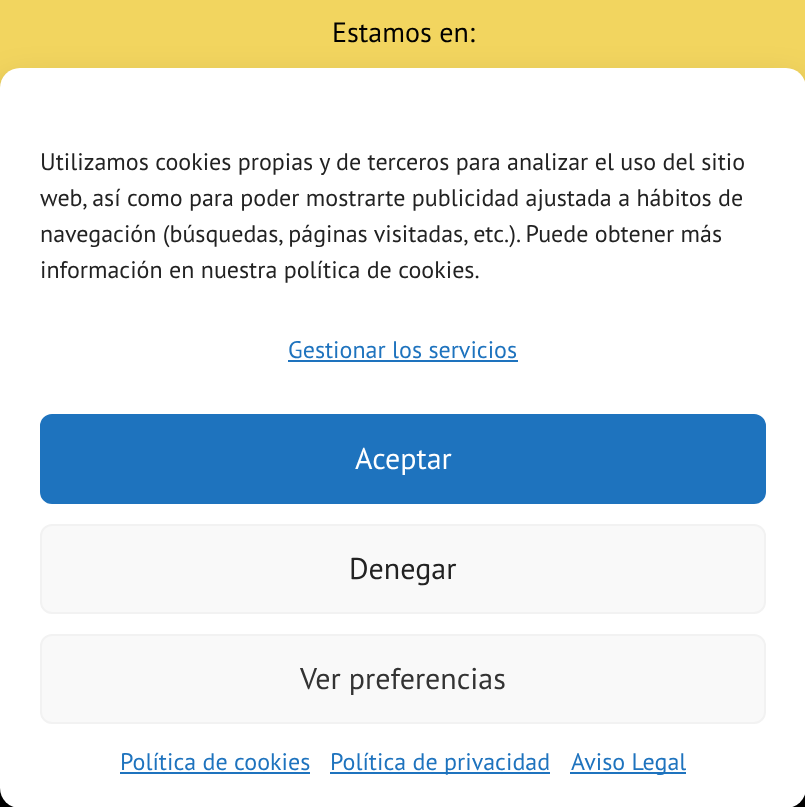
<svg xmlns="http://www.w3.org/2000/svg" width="805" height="807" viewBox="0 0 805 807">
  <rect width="100%" height="100%" fill="#f2d55f"/>
  <path d="M0 788h805v19H0z" fill="#000"/>
  <rect y="80" width="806" height="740" rx="20" fill="#0000003b" filter="blur(6px)"/>
  <rect y="88" width="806" height="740" rx="20" fill="#00000030" filter="blur(20px)"/>
  <rect y="68" width="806" height="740" rx="20" fill="#fff"/>
  <path d="M288 360h230v2H288z" fill="#1e73be"/>
  <rect x="41" y="415" width="724" height="88" rx="11" fill="#1e73be" stroke="#1e73be" stroke-width="2"/>
  <rect x="41" y="525" width="724" height="88" rx="11" fill="#f9f9f9" stroke="#f2f2f2" stroke-width="2"/>
  <rect x="41" y="635" width="724" height="88" rx="11" fill="#f9f9f9" stroke="#f2f2f2" stroke-width="2"/>
  <path d="M120 772h190v2H120z" fill="#1e73be"/>
  <path d="M330 772h220v2H330z" fill="#1e73be"/>
  <path d="M570 772h116v2H570z" fill="#1e73be"/>
  <text x="332" y="42" font-family="PT Sans" font-size="28" fill="#000">Estamos en:</text>
  <g font-family="PT Sans" font-size="24" fill="#222">
    <text x="40" y="170">Utilizamos cookies propias y de terceros para analizar el uso del sitio</text>
    <text x="40" y="206">web, así como para poder mostrarte publicidad ajustada a hábitos de</text>
    <text x="40" y="242">navegación (búsquedas, páginas visitadas, etc.). Puede obtener más</text>
    <text x="40" y="278">información en nuestra política de cookies.</text>
  </g>
  <text x="288" y="358" font-family="PT Sans" font-size="24" fill="#1e73be">Gestionar los servicios</text>
  <text x="355" y="469" font-family="PT Sans" font-size="30" fill="#fff">Aceptar</text>
  <text x="349" y="579" font-family="PT Sans" font-size="30" fill="#222">Denegar</text>
  <text x="300" y="689" font-family="PT Sans" font-size="30" fill="#333">Ver preferencias</text>
  <g font-family="PT Sans" font-size="24" fill="#1e73be">
    <text x="120" y="770">Política de cookies</text>
    <text x="330" y="770">Política de privacidad</text>
    <text x="571" y="770">Aviso Legal</text>
  </g>
</svg>
